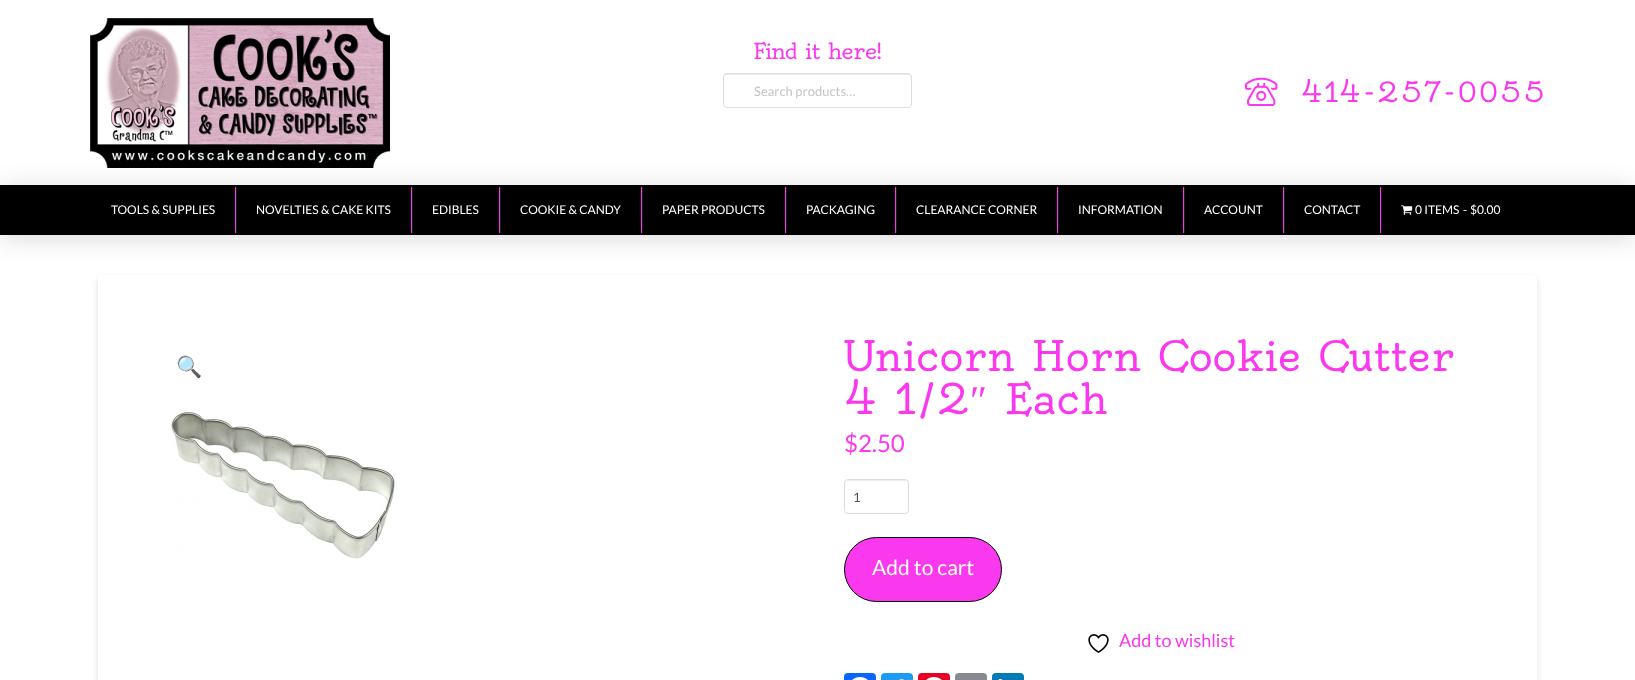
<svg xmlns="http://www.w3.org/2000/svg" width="1635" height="680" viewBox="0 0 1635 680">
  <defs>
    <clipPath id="clip1"><path d="M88 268H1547V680H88ZM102 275H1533C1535 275 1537 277 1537 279V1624C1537 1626 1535 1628 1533 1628H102C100 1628 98 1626 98 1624V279C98 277 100 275 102 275Z" clip-rule="evenodd"/></clipPath>
  </defs>
  <rect width="100%" height="100%" fill="#fff"/>
  <image x="90" y="18" width="300" height="150" href="img/1.png"/>
  <path d="M727 75H908C910 75 911 76 911 78C911 76 910 74 908 74H726C724 75 724 76 724 78C724 76 725 75 727 75Z" fill="#ececec"/>
  <rect x="723.5" y="73.5" width="188" height="34" rx="3.5" fill="none" stroke="#ddd"/>
  <image x="1245" y="77" width="33" height="29" href="img/2.png"/>
  <path d="M0 188h1635v50H0z" fill="#00000026" filter="blur(12.5px)"/>
  <path d="M0 185h1635v50H0z" fill="#000"/>
  <path d="M236 187h1v46H236z" fill="#1a1a1a"/>
  <path d="M235 187h1v46H235z" fill="#fa38ee"/>
  <path d="M412 187h1v46H412z" fill="#1a1a1a"/>
  <path d="M411 187h1v46H411z" fill="#fa38ee"/>
  <path d="M500 187h1v46H500z" fill="#1a1a1a"/>
  <path d="M499 187h1v46H499z" fill="#fa38ee"/>
  <path d="M642 187h1v46H642z" fill="#1a1a1a"/>
  <path d="M641 187h1v46H641z" fill="#fa38ee"/>
  <path d="M786 187h1v46H786z" fill="#1a1a1a"/>
  <path d="M785 187h1v46H785z" fill="#fa38ee"/>
  <path d="M896 187h1v46H896z" fill="#1a1a1a"/>
  <path d="M895 187h1v46H895z" fill="#fa38ee"/>
  <path d="M1058 187h1v46H1058z" fill="#1a1a1a"/>
  <path d="M1057 187h1v46H1057z" fill="#fa38ee"/>
  <path d="M1184 187h1v46H1184z" fill="#1a1a1a"/>
  <path d="M1183 187h1v46H1183z" fill="#fa38ee"/>
  <path d="M1284 187h1v46H1284z" fill="#1a1a1a"/>
  <path d="M1283 187h1v46H1283z" fill="#fa38ee"/>
  <path d="M1381 187h1v46H1381z" fill="#1a1a1a"/>
  <path d="M1380 187h1v46H1380z" fill="#fa38ee"/>
  <image x="1401" y="205" width="12" height="10" href="img/3.png"/>
  <g clip-path="url(#clip1)">
    <rect x="98" y="278" width="1439" height="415" rx="4" fill="#00000021" filter="blur(3px)"/>
  </g>
  <image x="171" y="411" width="224" height="148" href="img/4.png"/>
  <path d="M848 481H905C907 481 908 482 908 484C908 478 900 480 896 480H858C853 480 845 478 845 484C845 482 846 481 848 481Z" fill="#ececec"/>
  <rect x="844.5" y="479.5" width="64" height="34" rx="3.5" fill="none" stroke="#ddd"/>
  <rect x="844.5" y="537.5" width="157" height="64" rx="32" fill="#fa38ee" stroke="#000"/>
  <image x="1088" y="634" width="21" height="19" href="img/5.png"/>
  <rect x="844" y="673" width="32" height="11" rx="4" fill="#0866ff"/>
  <image x="852" y="677" width="16" height="3" href="img/6.png"/>
  <rect x="881" y="673" width="32" height="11" rx="4" fill="#1d9bf0"/>
  <image x="899" y="679" width="10" height="1" href="img/7.png"/>
  <rect x="918" y="673" width="32" height="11" rx="4" fill="#e60023"/>
  <image x="926" y="677" width="16" height="3" href="img/8.png"/>
  <rect x="955" y="673" width="32" height="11" rx="4" fill="#888990"/>
  <rect x="992" y="673" width="32" height="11" rx="4" fill="#007bb5"/>
  <image x="998" y="678" width="5" height="2" href="img/9.png"/>
  <text x="753" y="59" font-family="Oldenburg" font-size="21.5" letter-spacing="-0.75" fill="#fa38ee">Find it here!</text>
  <text x="754" y="96" font-family="Lato" font-size="13" fill="#c5c5c5">Search products…</text>
  <text x="1301" y="102" font-family="Oldenburg" font-size="27" letter-spacing="1" fill="#fa38ee">414-257-0055</text>
  <g font-family="Lato" font-size="12" fill="#fff">
    <text x="111" y="214">TOOLS &amp; SUPPLIES</text>
    <text x="256" y="214">NOVELTIES &amp; CAKE KITS</text>
    <text x="432" y="214">EDIBLES</text>
    <text x="520" y="214">COOKIE &amp; CANDY</text>
    <text x="662" y="214">PAPER PRODUCTS</text>
    <text x="806" y="214">PACKAGING</text>
    <text x="916" y="214">CLEARANCE CORNER</text>
    <text x="1078" y="214">INFORMATION</text>
    <text x="1204" y="214">ACCOUNT</text>
    <text x="1304" y="214">CONTACT</text>
    <text x="1415" y="214">0 ITEMS</text>
    <text x="1463" y="214">-</text>
    <text x="1470" y="214">$0.00</text>
  </g>
  <text x="176" y="374" font-family="Noto Color Emoji" font-size="21" fill="#fa38ee">🔍</text>
  <g font-family="Oldenburg" font-size="41" fill="#fa38ee">
    <text x="844" y="371">Unicorn Horn Cookie Cutter</text>
    <text x="844" y="414">4 1/2</text>
  </g>
  <text x="970" y="414" font-family="Liberation Serif" font-size="41" fill="#fa38ee">″</text>
  <text x="1005" y="414" font-family="Oldenburg" font-size="41" fill="#fa38ee">Each</text>
  <text x="844" y="452" font-family="Lato" font-size="24" fill="#fa38ee">$2.50</text>
  <text x="853" y="502" font-family="Lato" font-size="13" fill="#555">1</text>
  <text x="872" y="575" font-family="Lato" font-size="21" fill="#fff">Add to cart</text>
  <text x="1119" y="647" font-family="Lato" font-size="18" fill="#fa38ee">Add to wishlist</text>
</svg>
